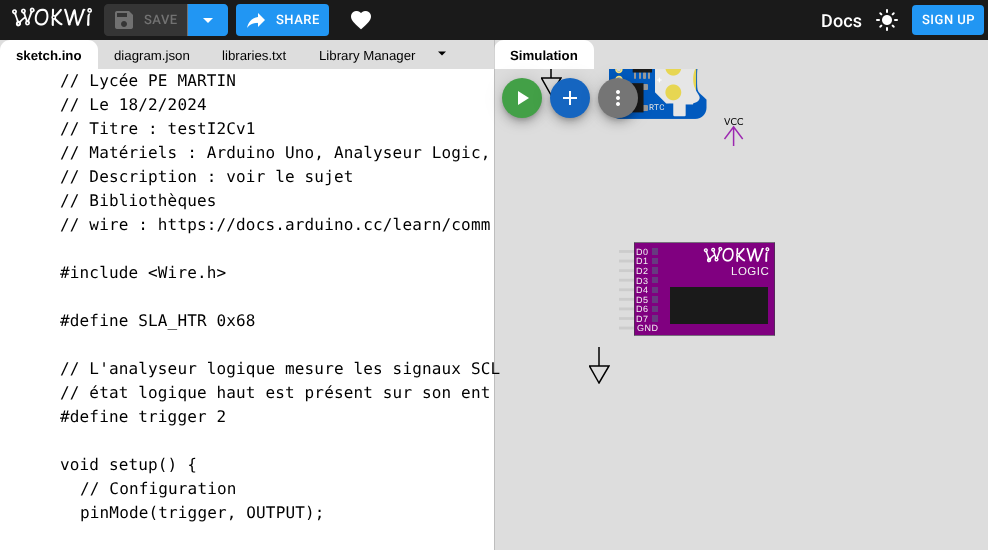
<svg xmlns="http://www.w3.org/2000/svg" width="988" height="550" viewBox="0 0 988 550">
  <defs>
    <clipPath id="clip1"><path d="M541 69h21v27H541z"/></clipPath>
    <clipPath id="clip2"><path d="M589 347h21v37H589z"/></clipPath>
  </defs>
  <rect width="100%" height="100%" fill="#1a1a1a"/>
  <image x="12" y="7" width="80" height="20" href="img/1.png"/>
  <path d="M108 4H188V36H108C106 36 104 34 104 32V8C104 6 106 4 108 4Z" fill="#ffffff1f"/>
  <path d="M187 4h1v32H187z" fill="#727272"/>
  <image x="115" y="11" width="18" height="18" href="img/2.png"/>
  <path d="M188 4H224C226 4 228 6 228 8V32C228 34 226 36 224 36H188Z" fill="#2196f3"/>
  <path d="M203 18L208 23L213 18Z" fill="#fff"/>
  <rect x="236" y="4" width="93" height="32" rx="4" fill="#2196f3"/>
  <image x="247" y="13" width="18" height="15" href="img/3.png"/>
  <image x="351" y="11" width="20" height="19" href="img/4.png"/>
  <image x="876" y="9" width="22" height="22" href="img/5.png"/>
  <rect x="912" y="5" width="72" height="30" rx="4" fill="#2196f3"/>
  <path d="M0 40h988v29H0z" fill="#ddd"/>
  <path d="M10 40H88C93.5 40 98 44.5 98 50V69H0V50C0 44.5 4.5 40 10 40Z" fill="#fff"/>
  <path d="M438 51.5L442 55.5L446 51.5Z" fill="#000"/>
  <path d="M0 69h494v481H0z" fill="#fff"/>
  <path d="M504 40H584C589.5 40 594 44.5 594 50V69H494V50C494 44.5 498.5 40 504 40Z" fill="#fff"/>
  <path d="M494 69h494v481H494z" fill="#ddd"/>
  <g clip-path="url(#clip1)">
    <path d="M551 59V78ZM551 95L541.5 78H561Z" fill="none" stroke="#000" stroke-width="1.5"/>
  </g>
  <rect x="502" y="79" width="40" height="40" rx="20" fill="#0000001f" filter="blur(9px)"/>
  <rect x="502" y="84" width="40" height="40" rx="20" fill="#00000024" filter="blur(5px)"/>
  <rect x="503" y="82" width="38" height="38" rx="19" fill="#00000033" filter="blur(2.5px)"/>
  <path d="M494 40h1v510H494z" fill="#80808059"/>
  <circle cx="522" cy="98" r="20" fill="#43a047"/>
  <path d="M518 91V105L529 98Z" fill="#fff"/>
  <image x="609" y="69" width="98" height="50" href="img/8.png"/>
  <rect x="550" y="79" width="40" height="40" rx="20" fill="#0000001f" filter="blur(9px)"/>
  <rect x="550" y="84" width="40" height="40" rx="20" fill="#00000024" filter="blur(5px)"/>
  <rect x="551" y="82" width="38" height="38" rx="19" fill="#00000033" filter="blur(2.5px)"/>
  <circle cx="570" cy="98" r="20" fill="#1565c0"/>
  <image x="563" y="91" width="14" height="14" href="img/6.png"/>
  <rect x="598" y="79" width="40" height="40" rx="20" fill="#0000001f" filter="blur(9px)"/>
  <rect x="598" y="84" width="40" height="40" rx="20" fill="#00000024" filter="blur(5px)"/>
  <rect x="599" y="82" width="38" height="38" rx="19" fill="#00000033" filter="blur(2.5px)"/>
  <circle cx="618" cy="98" r="20" fill="#757575"/>
  <image x="616" y="90" width="4" height="16" href="img/7.png"/>
  <image x="724" y="118" width="20" height="28" href="img/9.png"/>
  <image x="619" y="242" width="156" height="94" href="img/10.png"/>
  <path d="M599 347V366Z" fill="none" stroke="#000" stroke-width="1.5"/>
  <g clip-path="url(#clip2)">
    <path d="M599 383L589.5 366H609Z" fill="none" stroke="#000" stroke-width="1.5"/>
  </g>
  <text x="144" y="24" font-family="Roboto" font-size="13" font-weight="500" letter-spacing="0.5" fill="#727272">SAVE</text>
  <text x="276" y="24" font-family="Roboto" font-size="13" font-weight="500" letter-spacing="0.5" fill="#fff">SHARE</text>
  <text x="821" y="27" font-family="Roboto" font-size="18" font-weight="500" letter-spacing="0.15" fill="#fff">Docs</text>
  <text x="922" y="24" font-family="Roboto" font-size="13" font-weight="500" letter-spacing="0.5" fill="#fff">SIGN UP</text>
  <text x="16" y="60" font-family="Liberation Sans" font-size="13.25" font-weight="bold" fill="#000">sketch.ino</text>
  <g font-family="Liberation Sans" font-size="13.25" fill="#000">
    <text x="114" y="60">diagram.json</text>
    <text x="222" y="60">libraries.txt</text>
    <text x="319" y="60">Library Manager</text>
  </g>
  <g font-family="DejaVu Sans Mono" font-size="16" letter-spacing="0.15" fill="#000">
    <text x="60" y="86">// Lycée PE MARTIN</text>
    <text x="60" y="110">// Le 18/2/2024</text>
    <text x="60" y="134">// Titre : testI2Cv1</text>
    <text x="60" y="158">// Matériels : Arduino Uno, Analyseur Logic,</text>
    <text x="60" y="182">// Description : voir le sujet</text>
    <text x="60" y="206">// Bibliothèques</text>
    <text x="60" y="230">// wire : https://docs.arduino.cc/learn/comm</text>
    <text x="60" y="278">#include &lt;Wire.h&gt;</text>
    <text x="60" y="326">#define SLA_HTR 0x68</text>
    <text x="60" y="374">// L'analyseur logique mesure les signaux SCL</text>
    <text x="60" y="398">// état logique haut est présent sur son ent</text>
    <text x="60" y="422">#define trigger 2</text>
    <text x="60" y="470">void setup() {</text>
    <text x="80" y="494">// Configuration</text>
    <text x="80" y="518">pinMode(trigger, OUTPUT);</text>
  </g>
  <text x="510" y="60" font-family="Liberation Sans" font-size="13.25" font-weight="bold" fill="#000">Simulation</text>
  <text x="657" y="83" font-family="Roboto" font-size="9" font-weight="bold" letter-spacing="0.5" fill="#fff">+</text>
  <text x="649" y="110" font-family="Roboto" font-size="8" letter-spacing="0.5" fill="#e6e6e6">RTC</text>
  <g font-family="Liberation Sans" font-size="9" letter-spacing="0.5" fill="#f2f2f2">
    <text x="636" y="255">D0</text>
    <text x="636" y="264">D1</text>
    <text x="636" y="274">D2</text>
  </g>
  <text x="731" y="275" font-family="Liberation Sans" font-size="11.5" letter-spacing="0.5" fill="#f2f2f2">LOGIC</text>
  <g font-family="Liberation Sans" font-size="9" letter-spacing="0.5" fill="#f2f2f2">
    <text x="636" y="284">D3</text>
    <text x="636" y="293">D4</text>
    <text x="636" y="303">D5</text>
    <text x="636" y="312">D6</text>
    <text x="636" y="322">D7</text>
    <text x="637" y="331">GND</text>
  </g>
</svg>
